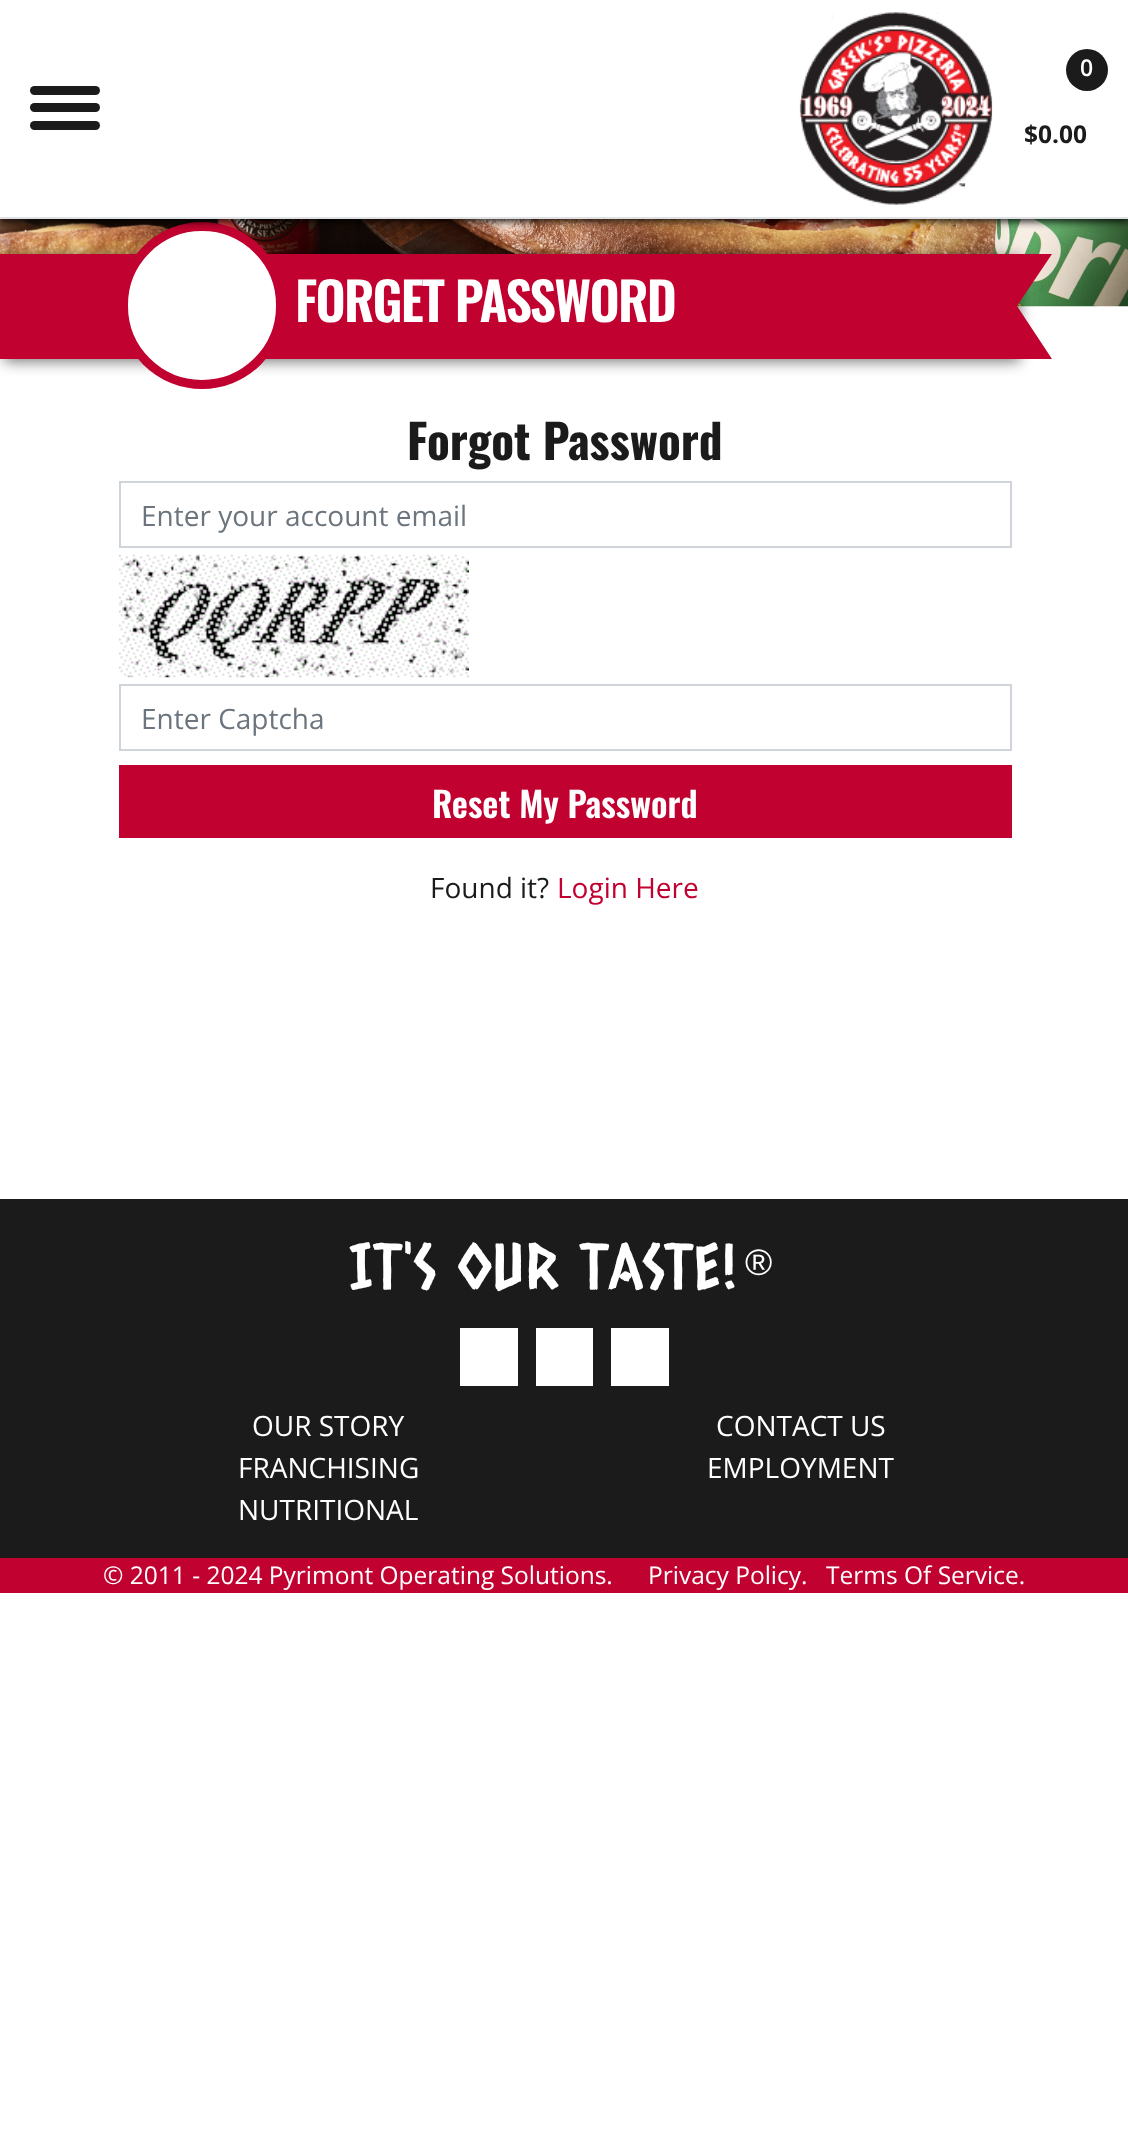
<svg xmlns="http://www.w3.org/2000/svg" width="1128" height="2153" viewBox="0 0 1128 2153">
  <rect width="100%" height="100%" fill="#fff"/>
  <image x="0" y="219" width="1128" height="88" href="img/3.png"/>
  <path d="M4 257h1016v105H4z" fill="#00000080" filter="blur(7px)"/>
  <path d="M0 254h1017v105H0z" fill="#c10230"/>
  <rect x="123.5" y="226.5" width="157" height="158" rx="78.5" fill="#fff" stroke="#c10230" stroke-width="9"/>
  <path d="M0 4h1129v218H0z" fill="#000000cc" filter="blur(3.5px)"/>
  <path d="M0 0h1128v217H0z" fill="#fff"/>
  <path d="M0 217h1128v2H0z" fill="#dee2e6"/>
  <rect x="30" y="86" width="70" height="9" rx="4.5" fill="#1b1b1b"/>
  <rect x="30" y="103" width="70" height="9" rx="4.5" fill="#1b1b1b"/>
  <rect x="30" y="121" width="70" height="9" rx="4.5" fill="#1b1b1b"/>
  <image x="803" y="12" width="188" height="192" href="img/2.png"/>
  <image x="799" y="12" width="194" height="193" href="img/1.png"/>
  <circle cx="1087" cy="70" r="21" fill="#1b1b1b"/>
  <path d="M982 254H1052L1017 306Z" fill="#c10230"/>
  <path d="M1052 359H982L1017 306Z" fill="#c10230"/>
  <path d="M120 482h891v65H120z" fill="none" stroke="#ced4da" stroke-width="2"/>
  <image x="119" y="554" width="350" height="124" href="img/4.png"/>
  <path d="M120 685h891v65H120z" fill="none" stroke="#ced4da" stroke-width="2"/>
  <path d="M119 765h893v73H119z" fill="#c10230"/>
  <path d="M0 1199h1128v359H0z" fill="#1b1b1b"/>
  <path d="M460 1328h58v58H460z" fill="#fff"/>
  <path d="M536 1328h57v58H536z" fill="#fff"/>
  <path d="M611 1328h58v58H611z" fill="#fff"/>
  <path d="M0 1558h1128v35H0z" fill="#c10230"/>
  <text x="1080" y="76" font-family="Open Sans" font-size="23" font-weight="600" fill="#fff">0</text>
  <text x="1024" y="143" font-family="Open Sans" font-size="24.5" font-weight="bold" fill="#1b1b1b">$0.00</text>
  <text x="295" y="322" font-family="Oswald" font-size="52.5" font-weight="600" letter-spacing="-1.75" fill="#fff">FORGET PASSWORD</text>
  <text x="407" y="460" font-family="Oswald" font-size="47.25" font-weight="bold" fill="#1b1b1b">Forgot Password</text>
  <g font-family="Open Sans" font-size="28" fill="#6c757d">
    <text x="141" y="526">Enter your account email</text>
    <text x="141" y="729">Enter Captcha</text>
  </g>
  <text x="432" y="818" font-family="Oswald" font-size="35" font-weight="600" fill="#fff">Reset My Password</text>
  <text x="430" y="898" font-family="Open Sans" font-size="28" fill="#1b1b1b">Found it?</text>
  <text x="557" y="898" font-family="Open Sans" font-size="28" fill="#c10230">Login Here</text>
  <text x="349" y="1289" font-family="Caesar Dressing" font-size="63" fill="#fff">IT'S OUR TASTE!</text>
  <text x="745" y="1275" font-family="Liberation Sans" font-size="37" fill="#fff">®</text>
  <g font-family="Open Sans" font-size="28" fill="#fff">
    <text x="252" y="1436">OUR STORY</text>
    <text x="238" y="1478">FRANCHISING</text>
    <text x="238" y="1520">NUTRITIONAL</text>
    <text x="716" y="1436">CONTACT US</text>
    <text x="707" y="1478">EMPLOYMENT</text>
  </g>
  <g font-family="Open Sans" font-size="24.5" fill="#fff">
    <text x="103" y="1584">© 2011 - 2024 Pyrimont Operating Solutions.</text>
    <text x="648" y="1584">Privacy Policy.</text>
    <text x="826" y="1584">Terms Of Service.</text>
  </g>
</svg>
